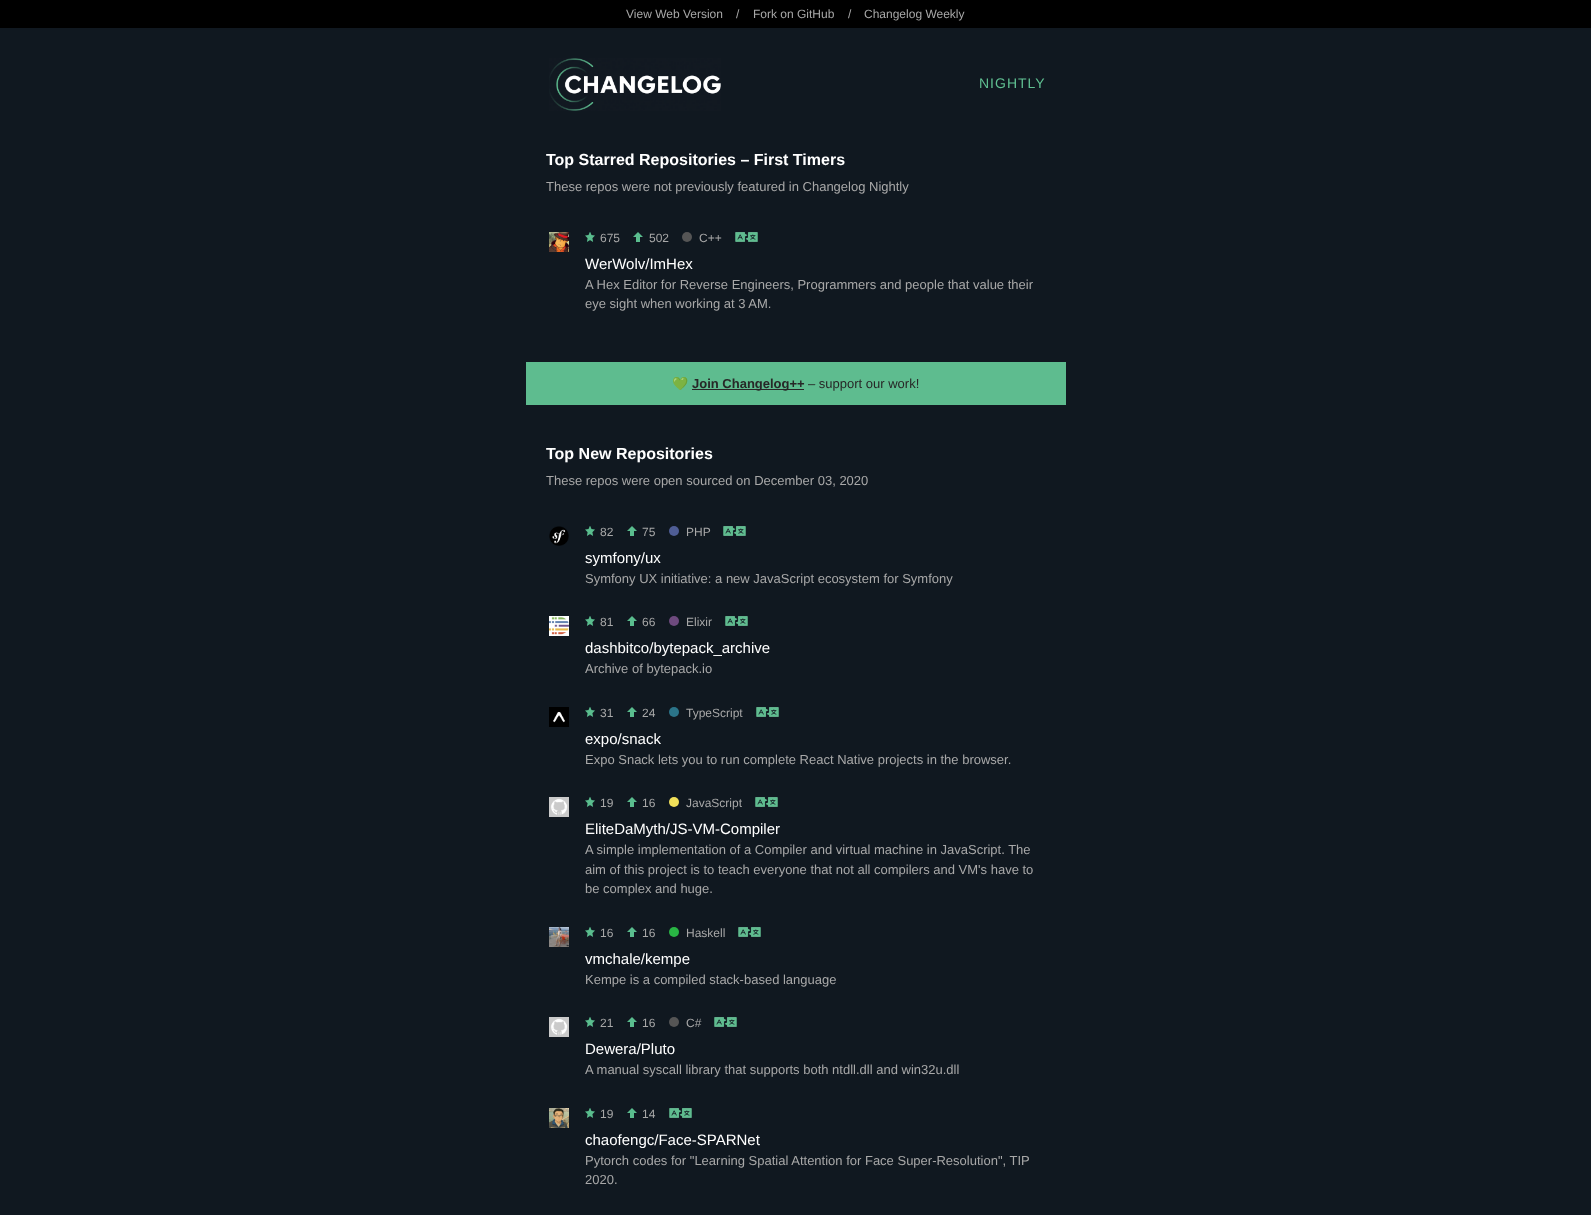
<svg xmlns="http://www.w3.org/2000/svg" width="1591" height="1215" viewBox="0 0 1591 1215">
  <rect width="100%" height="100%" fill="#000"/>
  <path d="M0 28h1591v1187H0z" fill="#101820"/>
  <image x="549" y="58" width="172" height="53" href="img/1.png"/>
  <image x="549" y="232" width="20" height="20" href="img/2.png"/>
  <image x="585" y="232" width="10" height="10" href="img/3.png"/>
  <image x="633" y="232" width="10" height="10" href="img/4.png"/>
  <circle cx="687" cy="237" r="5" fill="#555"/>
  <image x="735" y="232" width="23" height="10" href="img/5.png"/>
  <path d="M526 362h540v43H526z" fill="#5ebc8f"/>
  <path d="M692 389h112v1H692z" fill="#272727"/>
  <image x="549" y="526" width="20" height="20" href="img/6.png"/>
  <image x="585" y="526" width="10" height="10" href="img/3.png"/>
  <image x="627" y="526" width="10" height="10" href="img/4.png"/>
  <circle cx="674" cy="531" r="5" fill="#4f5d95"/>
  <image x="723" y="526" width="23" height="10" href="img/5.png"/>
  <image x="549" y="616" width="20" height="20" href="img/7.png"/>
  <image x="585" y="616" width="10" height="10" href="img/3.png"/>
  <image x="627" y="616" width="10" height="10" href="img/4.png"/>
  <circle cx="674" cy="621" r="5" fill="#6e4a7e"/>
  <image x="725" y="616" width="23" height="10" href="img/5.png"/>
  <image x="549" y="707" width="20" height="20" href="img/8.png"/>
  <image x="585" y="707" width="10" height="10" href="img/3.png"/>
  <image x="627" y="707" width="10" height="10" href="img/4.png"/>
  <circle cx="674" cy="712" r="5" fill="#2b7489"/>
  <image x="756" y="707" width="23" height="10" href="img/5.png"/>
  <image x="549" y="797" width="20" height="20" href="img/9.png"/>
  <image x="585" y="797" width="10" height="10" href="img/3.png"/>
  <image x="627" y="797" width="10" height="10" href="img/4.png"/>
  <circle cx="674" cy="802" r="5" fill="#f1e05a"/>
  <image x="755" y="797" width="23" height="10" href="img/5.png"/>
  <image x="549" y="927" width="20" height="20" href="img/10.png"/>
  <image x="585" y="927" width="10" height="10" href="img/3.png"/>
  <image x="627" y="927" width="10" height="10" href="img/4.png"/>
  <circle cx="674" cy="932" r="5" fill="#29b544"/>
  <image x="738" y="927" width="23" height="10" href="img/5.png"/>
  <image x="549" y="1017" width="20" height="20" href="img/9.png"/>
  <image x="585" y="1017" width="10" height="10" href="img/3.png"/>
  <image x="627" y="1017" width="10" height="10" href="img/4.png"/>
  <circle cx="674" cy="1022" r="5" fill="#555"/>
  <image x="714" y="1017" width="23" height="10" href="img/5.png"/>
  <image x="549" y="1108" width="20" height="20" href="img/11.png"/>
  <image x="585" y="1108" width="10" height="10" href="img/3.png"/>
  <image x="627" y="1108" width="10" height="10" href="img/4.png"/>
  <image x="669" y="1108" width="23" height="10" href="img/5.png"/>
  <g font-family="Liberation Sans" font-size="12" fill="#a8a8a8">
    <text x="626" y="18">View Web Version</text>
    <text x="736" y="18">/</text>
    <text x="753" y="18">Fork on GitHub</text>
    <text x="848" y="18">/</text>
    <text x="864" y="18">Changelog Weekly</text>
  </g>
  <text x="979" y="88" font-family="Liberation Sans" font-size="14" letter-spacing="1" fill="#60c092">NIGHTLY</text>
  <text x="546" y="165" font-family="Liberation Sans" font-size="16" font-weight="bold" fill="#fff">Top Starred Repositories – First Timers</text>
  <text x="546" y="191" font-family="Liberation Sans" font-size="13" fill="#a8a8a8">These repos were not previously featured in Changelog Nightly</text>
  <g font-family="Liberation Sans" font-size="12" fill="#a8a8a8">
    <text x="600" y="242">675</text>
    <text x="649" y="242">502</text>
    <text x="699" y="242">C++</text>
  </g>
  <text x="585" y="269" font-family="Liberation Sans" font-size="15" fill="#fff">WerWolv/ImHex</text>
  <g font-family="Liberation Sans" font-size="13" fill="#a8a8a8">
    <text x="585" y="289">A Hex Editor for Reverse Engineers, Programmers and people that value their</text>
    <text x="585" y="308">eye sight when working at 3 AM.</text>
  </g>
  <text x="672" y="388" font-family="Noto Color Emoji" font-size="13" fill="#272727">💚</text>
  <text x="692" y="388" font-family="Liberation Sans" font-size="13" font-weight="bold" fill="#272727">Join Changelog++</text>
  <text x="808" y="388" font-family="Liberation Sans" font-size="13" fill="#272727">– support our work!</text>
  <text x="546" y="459" font-family="Liberation Sans" font-size="16" font-weight="bold" fill="#fff">Top New Repositories</text>
  <text x="546" y="485" font-family="Liberation Sans" font-size="13" fill="#a8a8a8">These repos were open sourced on December 03, 2020</text>
  <g font-family="Liberation Sans" font-size="12" fill="#a8a8a8">
    <text x="600" y="536">82</text>
    <text x="642" y="536">75</text>
    <text x="686" y="536">PHP</text>
  </g>
  <text x="585" y="563" font-family="Liberation Sans" font-size="15" fill="#fff">symfony/ux</text>
  <text x="585" y="583" font-family="Liberation Sans" font-size="13" fill="#a8a8a8">Symfony UX initiative: a new JavaScript ecosystem for Symfony</text>
  <g font-family="Liberation Sans" font-size="12" fill="#a8a8a8">
    <text x="600" y="626">81</text>
    <text x="642" y="626">66</text>
    <text x="686" y="626">Elixir</text>
  </g>
  <text x="585" y="653" font-family="Liberation Sans" font-size="15" fill="#fff">dashbitco/bytepack_archive</text>
  <text x="585" y="673" font-family="Liberation Sans" font-size="13" fill="#a8a8a8">Archive of bytepack.io</text>
  <g font-family="Liberation Sans" font-size="12" fill="#a8a8a8">
    <text x="600" y="717">31</text>
    <text x="642" y="717">24</text>
    <text x="686" y="717">TypeScript</text>
  </g>
  <text x="585" y="744" font-family="Liberation Sans" font-size="15" fill="#fff">expo/snack</text>
  <text x="585" y="764" font-family="Liberation Sans" font-size="13" fill="#a8a8a8">Expo Snack lets you to run complete React Native projects in the browser.</text>
  <g font-family="Liberation Sans" font-size="12" fill="#a8a8a8">
    <text x="600" y="807">19</text>
    <text x="642" y="807">16</text>
    <text x="686" y="807">JavaScript</text>
  </g>
  <text x="585" y="834" font-family="Liberation Sans" font-size="15" fill="#fff">EliteDaMyth/JS-VM-Compiler</text>
  <g font-family="Liberation Sans" font-size="13" fill="#a8a8a8">
    <text x="585" y="854">A simple implementation of a Compiler and virtual machine in JavaScript. The</text>
    <text x="585" y="874">aim of this project is to teach everyone that not all compilers and VM's have to</text>
    <text x="585" y="893">be complex and huge.</text>
  </g>
  <g font-family="Liberation Sans" font-size="12" fill="#a8a8a8">
    <text x="600" y="937">16</text>
    <text x="642" y="937">16</text>
    <text x="686" y="937">Haskell</text>
  </g>
  <text x="585" y="964" font-family="Liberation Sans" font-size="15" fill="#fff">vmchale/kempe</text>
  <text x="585" y="984" font-family="Liberation Sans" font-size="13" fill="#a8a8a8">Kempe is a compiled stack-based language</text>
  <g font-family="Liberation Sans" font-size="12" fill="#a8a8a8">
    <text x="600" y="1027">21</text>
    <text x="642" y="1027">16</text>
    <text x="686" y="1027">C#</text>
  </g>
  <text x="585" y="1054" font-family="Liberation Sans" font-size="15" fill="#fff">Dewera/Pluto</text>
  <text x="585" y="1074" font-family="Liberation Sans" font-size="13" fill="#a8a8a8">A manual syscall library that supports both ntdll.dll and win32u.dll</text>
  <g font-family="Liberation Sans" font-size="12" fill="#a8a8a8">
    <text x="600" y="1118">19</text>
    <text x="642" y="1118">14</text>
  </g>
  <text x="585" y="1145" font-family="Liberation Sans" font-size="15" fill="#fff">chaofengc/Face-SPARNet</text>
  <g font-family="Liberation Sans" font-size="13" fill="#a8a8a8">
    <text x="585" y="1165">Pytorch codes for "Learning Spatial Attention for Face Super-Resolution", TIP</text>
    <text x="585" y="1184">2020.</text>
  </g>
</svg>
